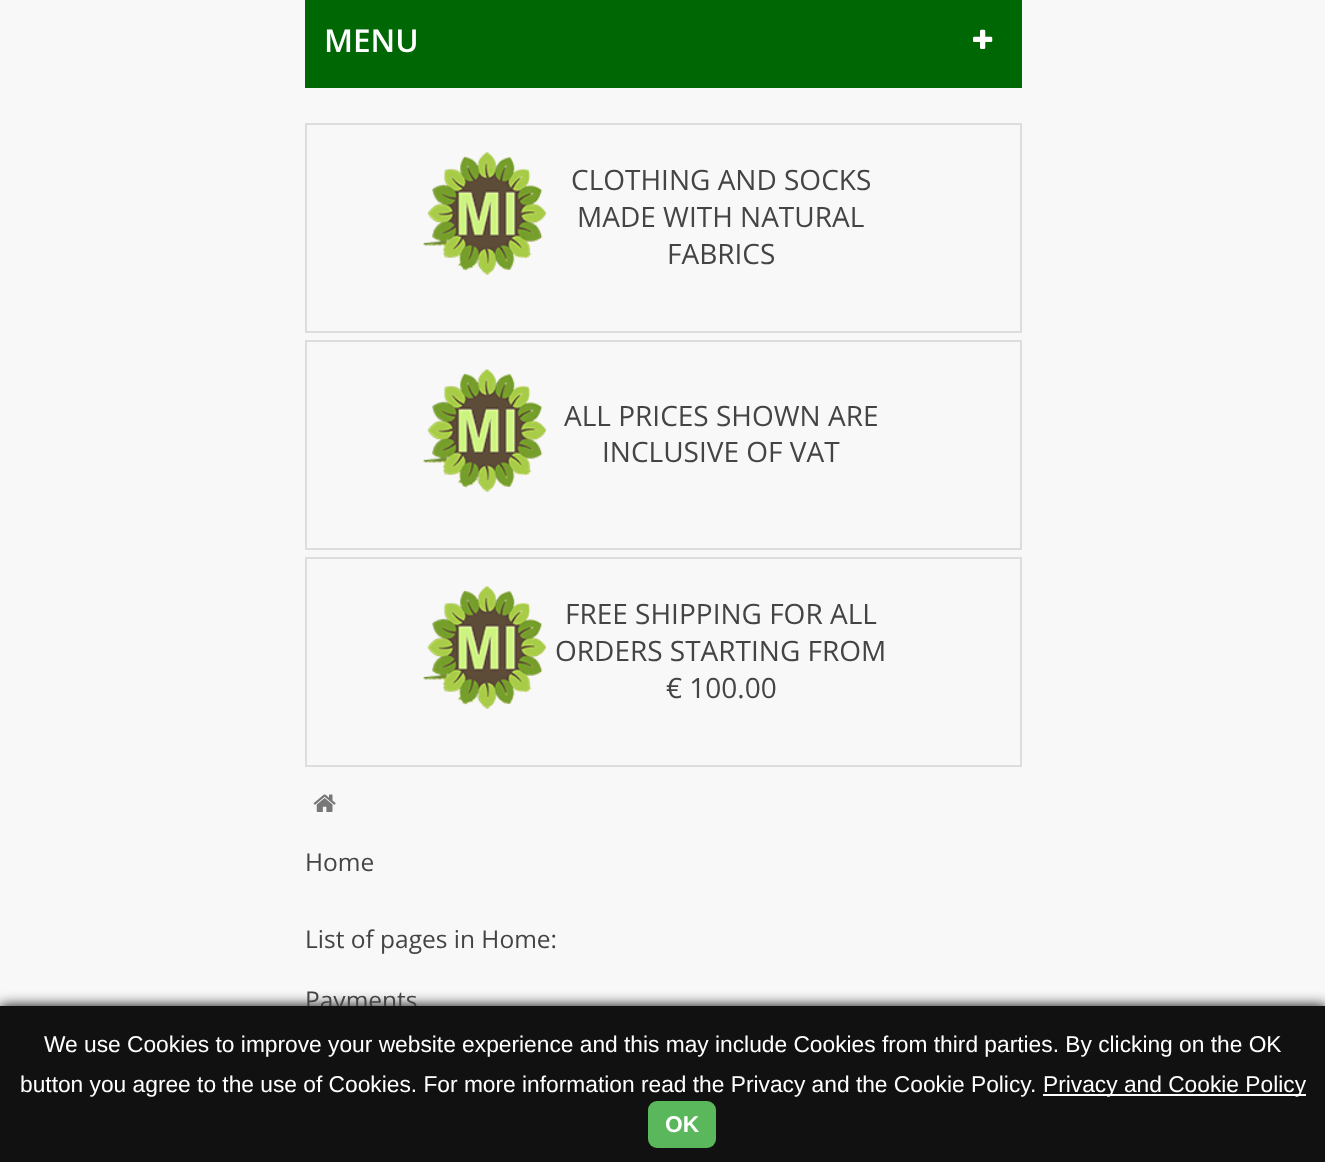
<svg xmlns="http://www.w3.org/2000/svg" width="1325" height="1162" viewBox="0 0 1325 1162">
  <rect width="100%" height="100%" fill="#f8f8f8"/>
  <path d="M305 0h717v88H305z" fill="#006705"/>
  <image x="973" y="29" width="20" height="20" href="img/1.png"/>
  <path d="M306 124h715v208H306z" fill="none" stroke="#ddd" stroke-width="2"/>
  <image x="423" y="152" width="123" height="123" href="img/2.png"/>
  <path d="M306 341h715v208H306z" fill="none" stroke="#ddd" stroke-width="2"/>
  <image x="423" y="369" width="123" height="123" href="img/3.png"/>
  <path d="M306 558h715v208H306z" fill="none" stroke="#ddd" stroke-width="2"/>
  <image x="423" y="586" width="123" height="123" href="img/4.png"/>
  <image x="313" y="794" width="23" height="18" href="img/5.png"/>
  <path d="M0 1006h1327v156H0z" fill="#000" filter="blur(7px)"/>
  <text x="324" y="52" font-family="Open Sans" font-size="31.5" font-weight="600" fill="#fff">MENU</text>
  <g font-family="Open Sans" font-size="28" fill="#444">
    <text x="571" y="190">CLOTHING AND SOCKS</text>
    <text x="577" y="227">MADE WITH NATURAL</text>
    <text x="667" y="264">FABRICS</text>
    <text x="564" y="426">ALL PRICES SHOWN ARE</text>
    <text x="602" y="462">INCLUSIVE OF VAT</text>
    <text x="565" y="624">FREE SHIPPING FOR ALL</text>
    <text x="555" y="661">ORDERS STARTING FROM</text>
    <text x="666" y="698">€ 100.00</text>
  </g>
  <g font-family="Open Sans" font-size="24.5" fill="#444">
    <text x="305" y="871">Home</text>
    <text x="305" y="948">List of pages in Home:</text>
    <text x="305" y="1009">Payments</text>
  </g>
  <path d="M0 1006h1325v156H0z" fill="#111"/>
  <g font-family="Liberation Sans" font-size="22.75" fill="#fff">
    <text x="44" y="1052">We use Cookies to improve your website experience and this may include Cookies from third parties. By clicking on the OK</text>
    <text x="20" y="1092">button you agree to the use of Cookies. For more information read the Privacy and the Cookie Policy.</text>
  </g>
  <path d="M1043 1094h263v2H1043z" fill="#fff"/>
  <text x="1043" y="1092" font-family="Liberation Sans" font-size="22.75" fill="#fff">Privacy and Cookie Policy</text>
  <rect x="648" y="1101" width="68" height="47" rx="9" fill="#5bb75b"/>
  <text x="665" y="1132" font-family="Liberation Sans" font-size="22.75" font-weight="bold" fill="#fff">OK</text>
</svg>
